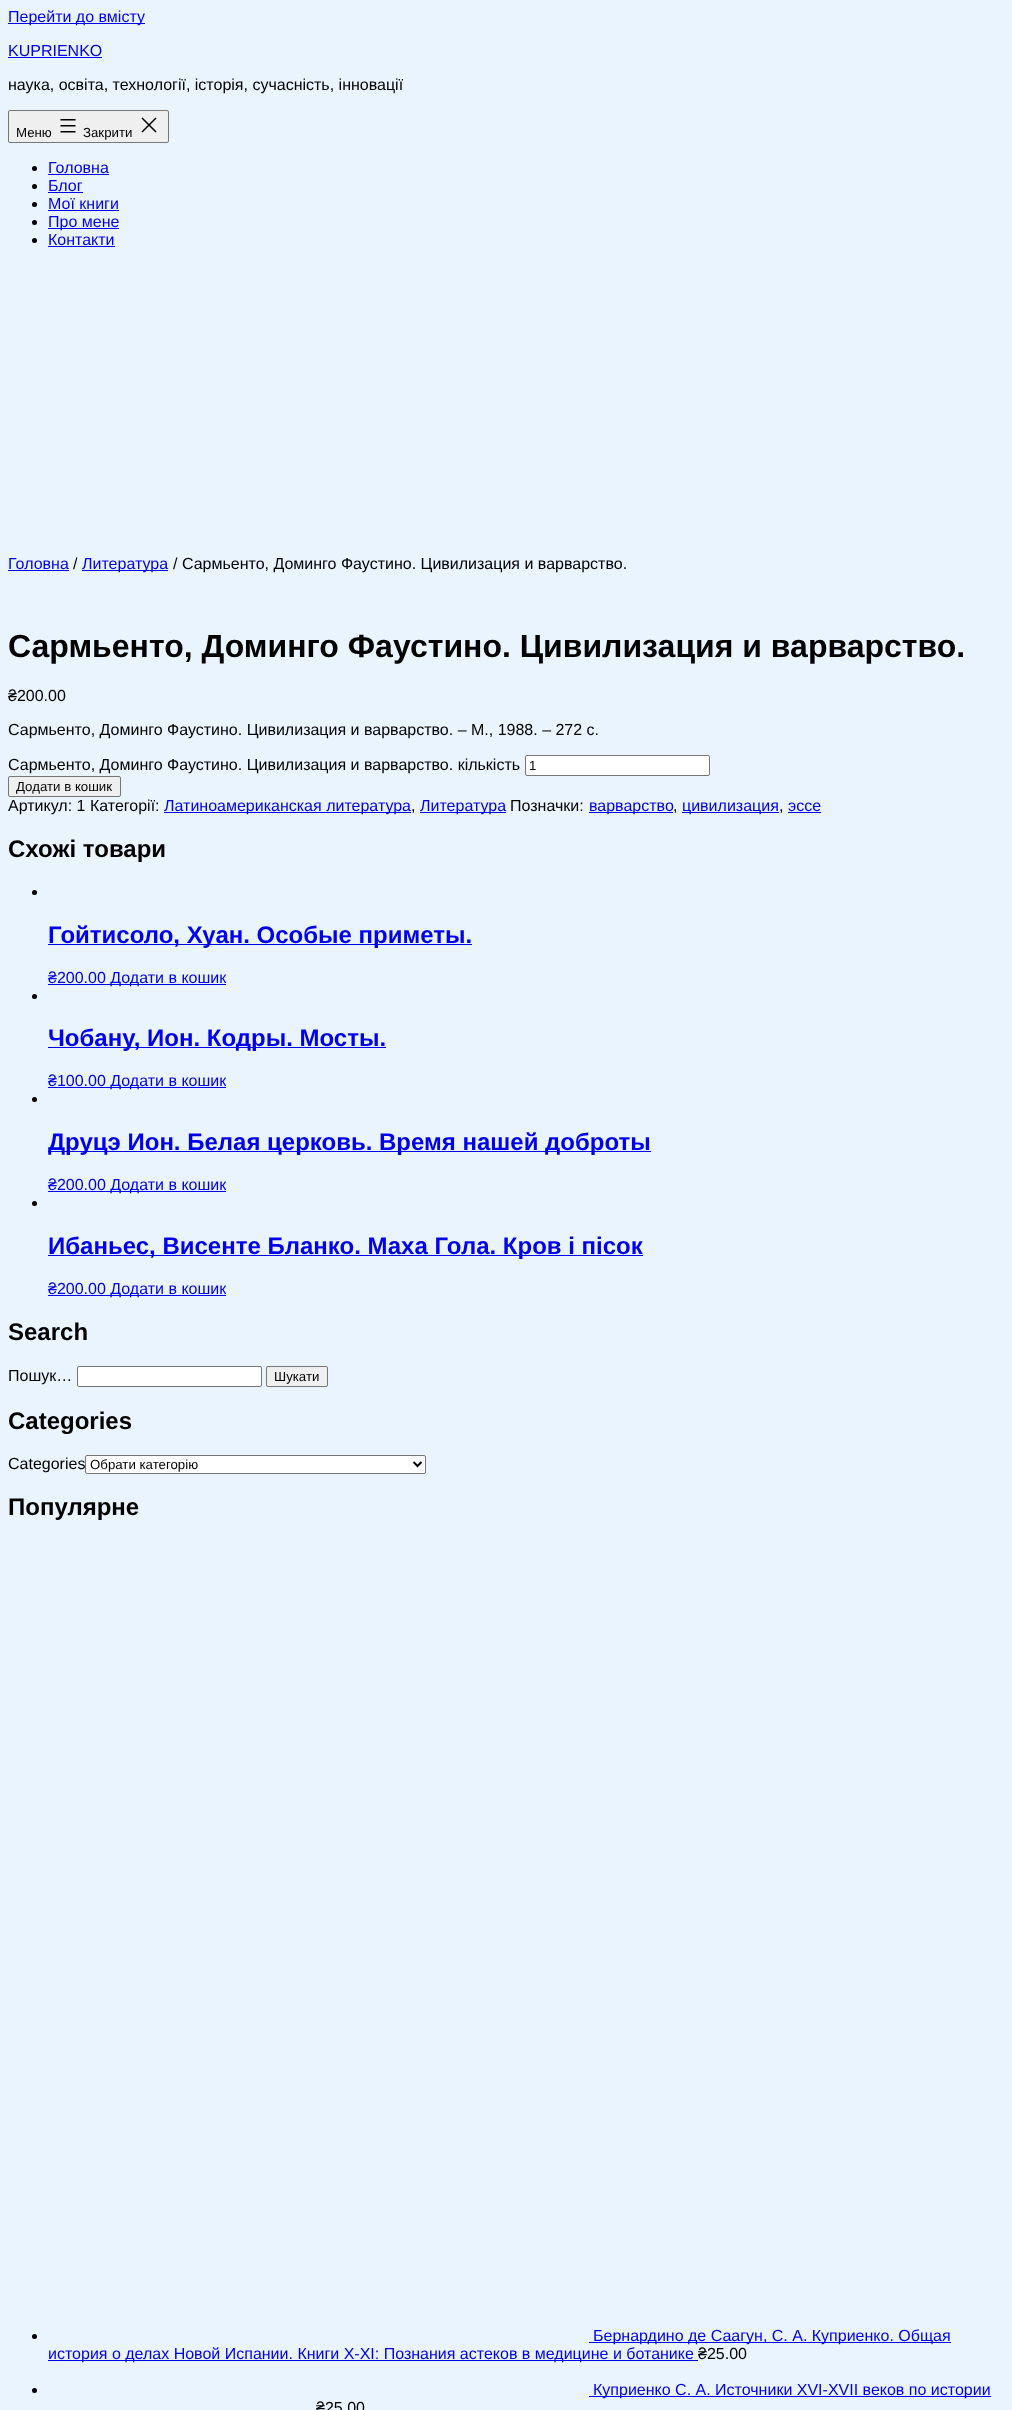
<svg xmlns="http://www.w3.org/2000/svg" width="1012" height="2410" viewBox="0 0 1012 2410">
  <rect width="100%" height="100%" fill="#eaf4ff"/>
  <path d="M8 23h137v1H8z" fill="#00e"/>
  <path d="M8 57h94v1H8z" fill="#00e"/>
  <rect x="8.5" y="110.5" width="160" height="32" rx="1.5" fill="#efefef" stroke="#767676"/>
  <image x="60" y="119" width="16" height="14" href="img/1.png"/>
  <image x="141" y="117" width="16" height="16" href="img/2.png"/>
  <circle cx="34.5" cy="168.5" r="2.5" fill="#000"/>
  <path d="M48 174h61v1H48z" fill="#00e"/>
  <circle cx="34.5" cy="186.5" r="2.5" fill="#000"/>
  <path d="M48 192h35v1H48z" fill="#00e"/>
  <circle cx="34.5" cy="204.5" r="2.5" fill="#000"/>
  <path d="M48 210h71v1H48z" fill="#00e"/>
  <circle cx="34.5" cy="222.5" r="2.5" fill="#000"/>
  <path d="M48 228h71v1H48z" fill="#00e"/>
  <circle cx="34.5" cy="240.5" r="2.5" fill="#000"/>
  <path d="M48 246h67v1H48z" fill="#00e"/>
  <path d="M8 570h61v1H8z" fill="#00e"/>
  <path d="M82 570h86v1H82z" fill="#00e"/>
  <rect x="525.5" y="755.5" width="184" height="20" rx="1.5" fill="#fff" stroke="#767676"/>
  <rect x="8.5" y="776.5" width="112" height="20" rx="1.5" fill="#efefef" stroke="#767676"/>
  <path d="M164 812h247v1H164z" fill="#00e"/>
  <path d="M420 812h86v1H420z" fill="#00e"/>
  <path d="M589 812h84v1H589z" fill="#00e"/>
  <path d="M682 812h97v1H682z" fill="#00e"/>
  <path d="M788 812h33v1H788z" fill="#00e"/>
  <circle cx="34.5" cy="892.5" r="2.5" fill="#000"/>
  <path d="M48 944h424v1H48z" fill="#00e"/>
  <path d="M48 984h178v1H48z" fill="#00e"/>
  <circle cx="34.5" cy="996.5" r="2.5" fill="#000"/>
  <path d="M48 1047h338v1H48z" fill="#00e"/>
  <path d="M48 1087h178v1H48z" fill="#00e"/>
  <circle cx="34.5" cy="1099.5" r="2.5" fill="#000"/>
  <path d="M48 1151h603v1H48z" fill="#00e"/>
  <path d="M48 1191h178v1H48z" fill="#00e"/>
  <circle cx="34.5" cy="1203.5" r="2.5" fill="#000"/>
  <path d="M48 1255h595v1H48z" fill="#00e"/>
  <path d="M48 1295h178v1H48z" fill="#00e"/>
  <rect x="77.5" y="1366.5" width="184" height="20" rx="1.5" fill="#fff" stroke="#767676"/>
  <rect x="266.5" y="1366.5" width="61" height="20" rx="1.5" fill="#efefef" stroke="#767676"/>
  <rect x="85.5" y="1455.5" width="340" height="18" rx="1.5" fill="#fff" stroke="#767676"/>
  <path d="M413.5 1462L417.5 1466L421.5 1462" fill="none" stroke="#000" stroke-width="2"/>
  <circle cx="34.5" cy="2336.5" r="2.5" fill="#000"/>
  <path d="M589 2342h362v1H589z" fill="#00e"/>
  <path d="M48 2360h650v1H48z" fill="#00e"/>
  <circle cx="34.5" cy="2390.5" r="2.5" fill="#000"/>
  <path d="M589 2396h402v1H589z" fill="#00e"/>
  <g font-family="Liberation Sans" font-size="16" fill="#00e">
    <text x="8" y="22">Перейти до вмісту</text>
    <text x="8" y="56">KUPRIENKO</text>
  </g>
  <text x="8" y="90" font-family="Liberation Sans" font-size="16" fill="#000">наука, освіта, технології, історія, сучасність, інновації</text>
  <g font-family="Liberation Sans" font-size="13.25" fill="#000">
    <text x="16" y="137">Меню</text>
    <text x="83" y="137">Закрити</text>
  </g>
  <g font-family="Liberation Sans" font-size="16" fill="#00e">
    <text x="48" y="173">Головна</text>
    <text x="48" y="191">Блог</text>
    <text x="48" y="209">Мої книги</text>
    <text x="48" y="227">Про мене</text>
    <text x="48" y="245">Контакти</text>
    <text x="8" y="569">Головна</text>
  </g>
  <text x="73" y="569" font-family="Liberation Sans" font-size="16" fill="#000">/</text>
  <text x="82" y="569" font-family="Liberation Sans" font-size="16" fill="#00e">Литература</text>
  <text x="173" y="569" font-family="Liberation Sans" font-size="16" fill="#000">/ Сармьенто, Доминго Фаустино. Цивилизация и варварство.</text>
  <text x="8" y="657" font-family="Liberation Sans" font-size="32" font-weight="bold" fill="#000">Сармьенто, Доминго Фаустино. Цивилизация и варварство.</text>
  <g font-family="Liberation Sans" font-size="16" fill="#000">
    <text x="8" y="701">₴200.00</text>
    <text x="8" y="735">Сармьенто, Доминго Фаустино. Цивилизация и варварство. – М., 1988. – 272 с.</text>
    <text x="8" y="770">Сармьенто, Доминго Фаустино. Цивилизация и варварство. кількість</text>
  </g>
  <g font-family="Liberation Sans" font-size="13.25" fill="#000">
    <text x="529" y="770">1</text>
    <text x="16" y="791">Додати в кошик</text>
  </g>
  <text x="8" y="811" font-family="Liberation Sans" font-size="16" fill="#000">Артикул: 1 Категорії:</text>
  <text x="164" y="811" font-family="Liberation Sans" font-size="16" fill="#00e">Латиноамериканская литература</text>
  <text x="411" y="811" font-family="Liberation Sans" font-size="16" fill="#000">,</text>
  <text x="420" y="811" font-family="Liberation Sans" font-size="16" fill="#00e">Литература</text>
  <text x="510" y="811" font-family="Liberation Sans" font-size="16" fill="#000">Позначки:</text>
  <text x="589" y="811" font-family="Liberation Sans" font-size="16" fill="#00e">варварство</text>
  <text x="673" y="811" font-family="Liberation Sans" font-size="16" fill="#000">,</text>
  <text x="682" y="811" font-family="Liberation Sans" font-size="16" fill="#00e">цивилизация</text>
  <text x="779" y="811" font-family="Liberation Sans" font-size="16" fill="#000">,</text>
  <text x="788" y="811" font-family="Liberation Sans" font-size="16" fill="#00e">эссе</text>
  <text x="8" y="857" font-family="Liberation Sans" font-size="24" font-weight="bold" fill="#000">Схожі товари</text>
  <text x="48" y="943" font-family="Liberation Sans" font-size="24" font-weight="bold" fill="#00e">Гойтисоло, Хуан. Особые приметы.</text>
  <text x="48" y="983" font-family="Liberation Sans" font-size="16" fill="#00e">₴200.00 Додати в кошик</text>
  <text x="48" y="1046" font-family="Liberation Sans" font-size="24" font-weight="bold" fill="#00e">Чобану, Ион. Кодры. Мосты.</text>
  <text x="48" y="1086" font-family="Liberation Sans" font-size="16" fill="#00e">₴100.00 Додати в кошик</text>
  <text x="48" y="1150" font-family="Liberation Sans" font-size="24" font-weight="bold" fill="#00e">Друцэ Ион. Белая церковь. Время нашей доброты</text>
  <text x="48" y="1190" font-family="Liberation Sans" font-size="16" fill="#00e">₴200.00 Додати в кошик</text>
  <text x="48" y="1254" font-family="Liberation Sans" font-size="24" font-weight="bold" fill="#00e">Ибаньес, Висенте Бланко. Маха Гола. Кров і пісок</text>
  <text x="48" y="1294" font-family="Liberation Sans" font-size="16" fill="#00e">₴200.00 Додати в кошик</text>
  <text x="8" y="1340" font-family="Liberation Sans" font-size="24" font-weight="bold" fill="#000">Search</text>
  <text x="8" y="1381" font-family="Liberation Sans" font-size="16" fill="#000">Пошук…</text>
  <text x="274" y="1381" font-family="Liberation Sans" font-size="13.25" fill="#000">Шукати</text>
  <text x="8" y="1429" font-family="Liberation Sans" font-size="24" font-weight="bold" fill="#000">Categories</text>
  <text x="8" y="1469" font-family="Liberation Sans" font-size="16" fill="#000">Categories</text>
  <text x="90" y="1469" font-family="Liberation Sans" font-size="13.25" fill="#000">Обрати категорію</text>
  <text x="8" y="1515" font-family="Liberation Sans" font-size="24" font-weight="bold" fill="#000">Популярне</text>
  <g font-family="Liberation Sans" font-size="16" fill="#00e">
    <text x="593" y="2341">Бернардино де Саагун, С. А. Куприенко. Общая</text>
    <text x="48" y="2359">история о делах Новой Испании. Книги X-XI: Познания астеков в медицине и ботанике</text>
  </g>
  <text x="698" y="2359" font-family="Liberation Sans" font-size="16" fill="#000">₴25.00</text>
  <text x="593" y="2395" font-family="Liberation Sans" font-size="16" fill="#00e">Куприенко С. А. Источники XVI-XVII веков по истории</text>
  <text x="316" y="2413" font-family="Liberation Sans" font-size="16" fill="#000">₴25.00</text>
</svg>
